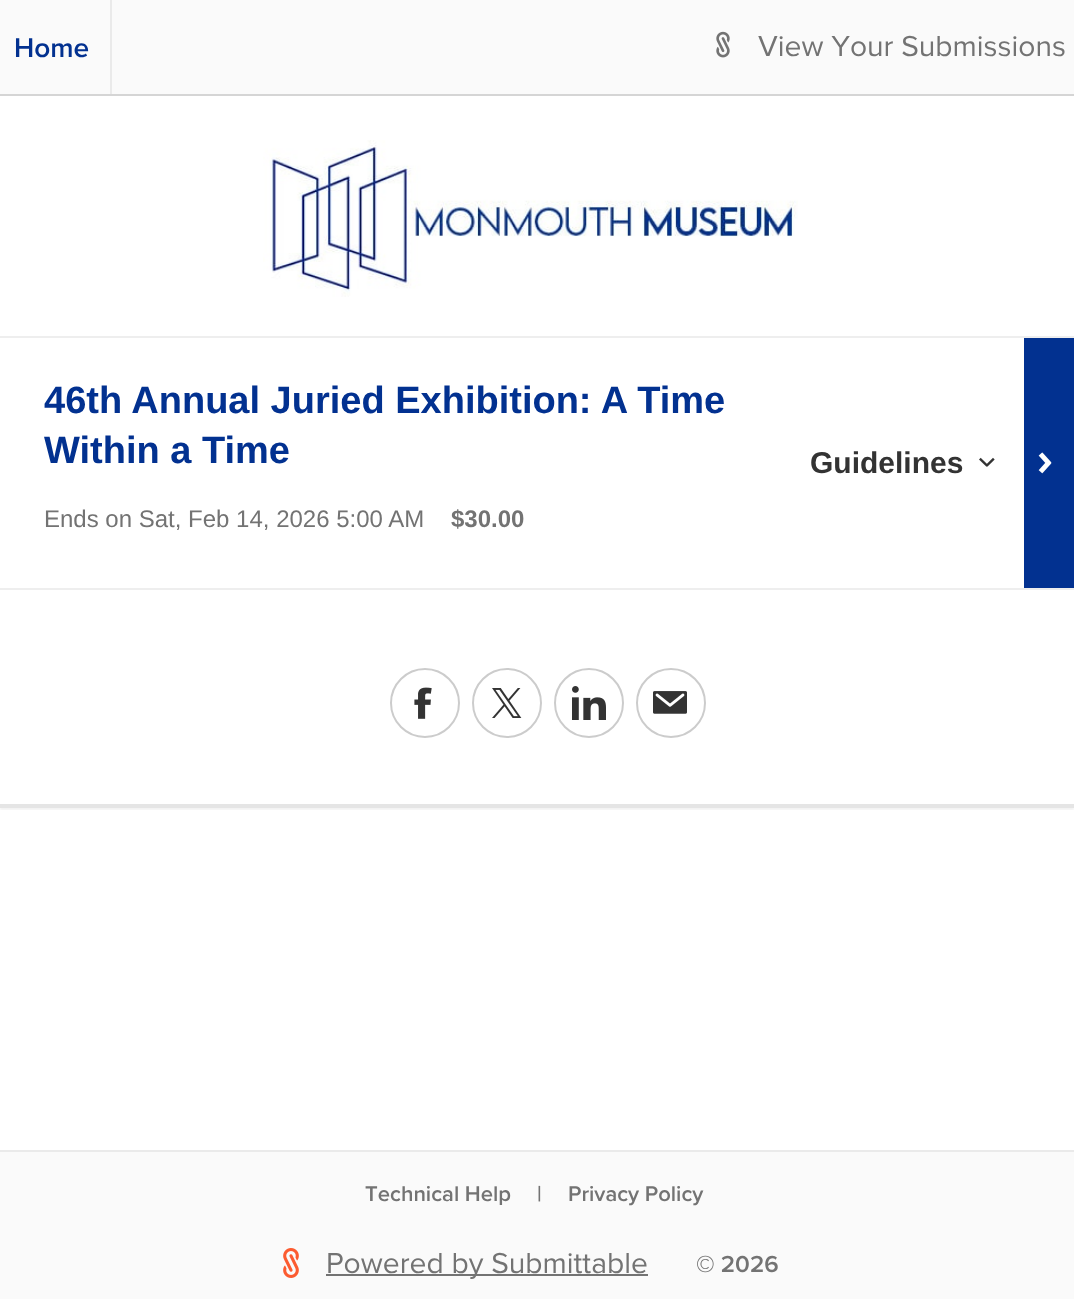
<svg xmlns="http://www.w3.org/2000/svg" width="1074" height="1299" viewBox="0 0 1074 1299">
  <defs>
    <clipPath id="clip1"><path d="M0 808h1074v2H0z"/></clipPath>
  </defs>
  <rect width="100%" height="100%" fill="#fff"/>
  <path d="M0 0h1074v94H0z" fill="#fafafa"/>
  <path d="M0 94h1074v2H0z" fill="#d5d5d5"/>
  <path d="M110 0h2v94H110z" fill="#eaeaea"/>
  <image x="716" y="31" width="14" height="27" href="img/1.png"/>
  <image x="263" y="140" width="535" height="157" href="img/2.png"/>
  <path d="M0 336h1074v2H0z" fill="#eee"/>
  <image x="979" y="457" width="16" height="10" href="img/3.png"/>
  <g clip-path="url(#clip1)">
    <path d="M0 590h1074v220H0z" fill="#0000000d" filter="blur(1px)"/>
  </g>
  <path d="M1024 338h50v250H1024z" fill="#023190"/>
  <image x="1038" y="452" width="14" height="22" href="img/4.png"/>
  <path d="M0 588h1074v2H0z" fill="#eee"/>
  <path d="M0 804h1074v4H0z" fill="#e5e5e5"/>
  <circle cx="425" cy="703" r="34" fill="none" stroke="#ccc" stroke-width="2"/>
  <image x="414" y="687" width="18" height="32" href="img/5.png"/>
  <circle cx="507" cy="703" r="34" fill="none" stroke="#ccc" stroke-width="2"/>
  <image x="492" y="688" width="30" height="30" href="img/6.png"/>
  <circle cx="589" cy="703" r="34" fill="none" stroke="#ccc" stroke-width="2"/>
  <image x="572" y="686" width="34" height="34" href="img/7.png"/>
  <circle cx="671" cy="703" r="34" fill="none" stroke="#ccc" stroke-width="2"/>
  <image x="653" y="691" width="34" height="23" href="img/8.png"/>
  <path d="M0 1152h1074v147H0z" fill="#fafafa"/>
  <path d="M0 1150h1074v2H0z" fill="#eaeaea"/>
  <image x="283" y="1248" width="16" height="30" href="img/9.png"/>
  <path d="M326 1274h322v2H326z" fill="#737373"/>
  <text x="14" y="57" font-family="'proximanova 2'" font-size="28" fill="#023190">Home</text>
  <text x="758" y="56" font-family="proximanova" font-size="30" fill="#737373">View Your Submissions</text>
  <g font-family="Liberation Sans" font-size="38" font-weight="bold" fill="#023190">
    <text x="44" y="413">46th Annual Juried Exhibition: A Time</text>
    <text x="44" y="463">Within a Time</text>
  </g>
  <text x="44" y="527" font-family="Liberation Sans" font-size="24" fill="#737373">Ends on Sat, Feb 14, 2026 5:00 AM</text>
  <text x="451" y="527" font-family="Liberation Sans" font-size="24" font-weight="bold" fill="#737373">$30.00</text>
  <text x="810" y="473" font-family="Liberation Sans" font-size="30" font-weight="bold" fill="#333">Guidelines</text>
  <g font-family="'proximanova 2'" font-size="22" fill="#737373">
    <text x="365" y="1201">Technical Help</text>
    <text x="537" y="1201">|</text>
    <text x="568" y="1201">Privacy Policy</text>
  </g>
  <text x="326" y="1273" font-family="proximanova" font-size="30" fill="#737373">Powered by Submittable</text>
  <text x="696" y="1272" font-family="'proximanova 2'" font-size="24" fill="#737373">© 2026</text>
</svg>
